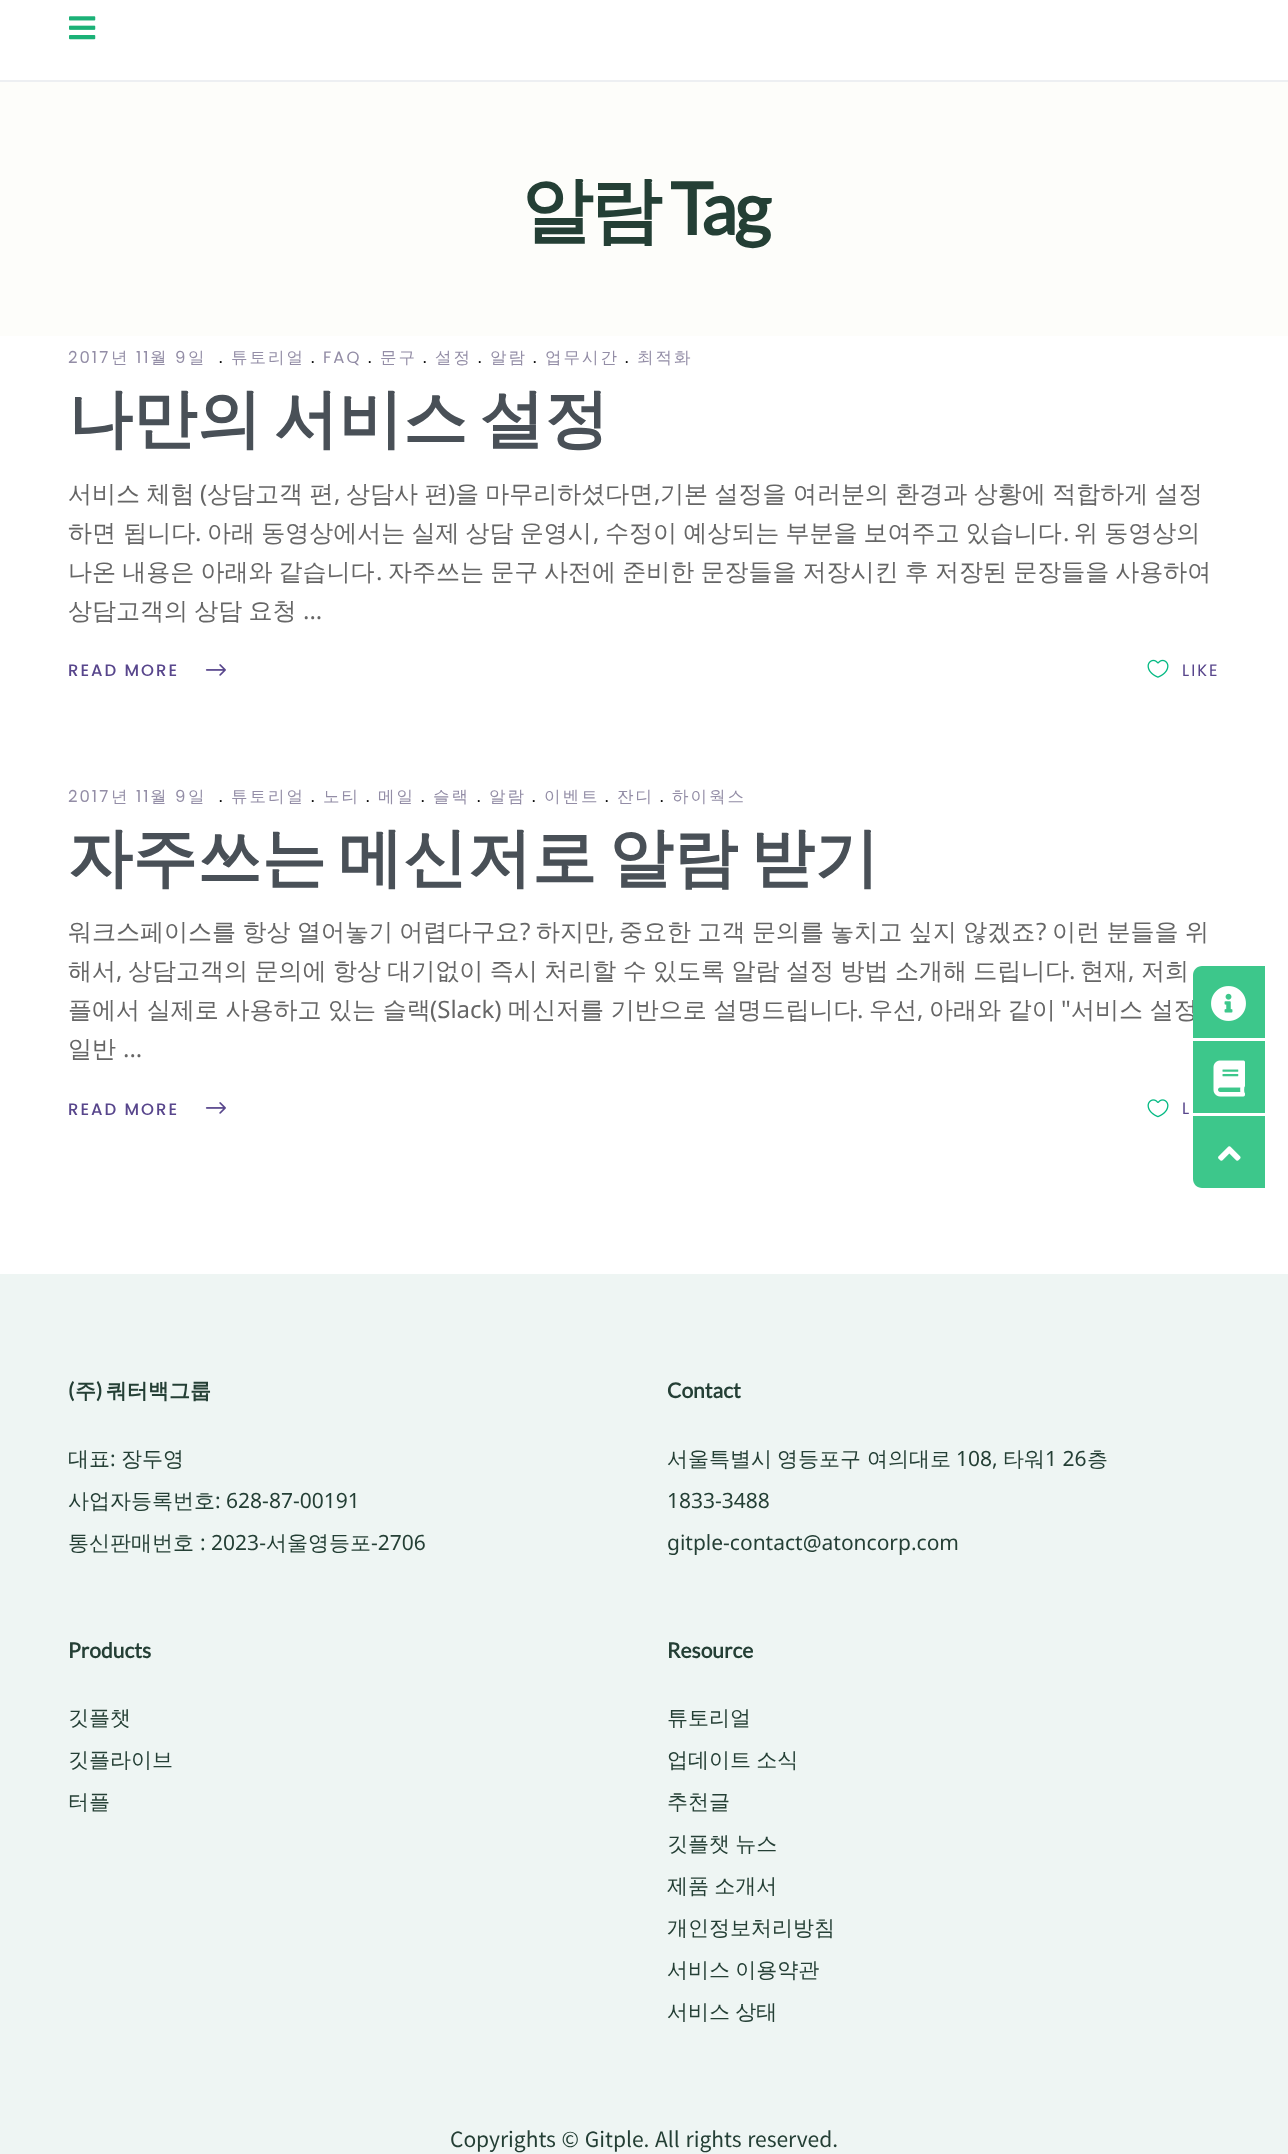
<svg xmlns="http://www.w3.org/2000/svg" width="1288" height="2154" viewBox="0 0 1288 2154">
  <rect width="100%" height="100%" fill="#fff"/>
  <path d="M0 80h1288v2H0z" fill="#edeff2"/>
  <image x="69" y="16" width="27" height="24" href="img/1.png"/>
  <path d="M0 82h1288v254H0z" fill="#fdfdfa"/>
  <image x="205" y="664" width="21" height="12" href="img/2.png"/>
  <image x="1147" y="659" width="22" height="19" href="img/3.png"/>
  <image x="205" y="1102" width="21" height="12" href="img/2.png"/>
  <image x="1147" y="1099" width="22" height="19" href="img/4.png"/>
  <path d="M0 1274h1288v880H0z" fill="#eef5f3"/>
  <path d="M1193 1041h72v72H1193z" fill="#3dc78b"/>
  <image x="1213" y="1060" width="32" height="37" href="img/6.png"/>
  <path d="M1193 1116H1265V1188H1202C1197 1188 1193 1184 1193 1179Z" fill="#3dc78b"/>
  <image x="1218" y="1146" width="23" height="15" href="img/7.png"/>
  <text x="521" y="235" font-family="WenQuanYi Zen Hei" font-size="72" font-weight="bold" letter-spacing="-3" fill="#243f35">알람</text>
  <text x="670" y="235" font-family="Lato" font-size="72" font-weight="bold" letter-spacing="-3" fill="#243f35">Tag</text>
  <text x="68" y="363" font-family="Poppins" font-size="16.5" letter-spacing="2" fill="#938da6">2017</text>
  <text x="111" y="363" font-family="WenQuanYi Zen Hei" font-size="16.5" font-weight="500" letter-spacing="2" fill="#938da6">년</text>
  <text x="136" y="363" font-family="Poppins" font-size="16.5" letter-spacing="2" fill="#938da6">11</text>
  <text x="150" y="363" font-family="WenQuanYi Zen Hei" font-size="16.5" font-weight="500" letter-spacing="2" fill="#938da6">월</text>
  <text x="175" y="363" font-family="Poppins" font-size="16.5" letter-spacing="2" fill="#938da6">9</text>
  <text x="188" y="363" font-family="WenQuanYi Zen Hei" font-size="16.5" font-weight="500" letter-spacing="2" fill="#938da6">일</text>
  <text x="219" y="363" font-family="Poppins" font-size="16.5" letter-spacing="2" fill="#000">.</text>
  <text x="231" y="363" font-family="WenQuanYi Zen Hei" font-size="16.5" font-weight="500" letter-spacing="2" fill="#938da6">튜토리얼</text>
  <text x="311" y="363" font-family="Poppins" font-size="16.5" letter-spacing="2" fill="#000">.</text>
  <text x="323" y="363" font-family="Poppins" font-size="16.5" letter-spacing="2" fill="#938da6">FAQ</text>
  <text x="368" y="363" font-family="Poppins" font-size="16.5" letter-spacing="2" fill="#000">.</text>
  <text x="380" y="363" font-family="WenQuanYi Zen Hei" font-size="16.5" font-weight="500" letter-spacing="2" fill="#938da6">문구</text>
  <text x="423" y="363" font-family="Poppins" font-size="16.5" letter-spacing="2" fill="#000">.</text>
  <text x="435" y="363" font-family="WenQuanYi Zen Hei" font-size="16.5" font-weight="500" letter-spacing="2" fill="#938da6">설정</text>
  <text x="478" y="363" font-family="Poppins" font-size="16.5" letter-spacing="2" fill="#000">.</text>
  <text x="490" y="363" font-family="WenQuanYi Zen Hei" font-size="16.5" font-weight="500" letter-spacing="2" fill="#938da6">알람</text>
  <text x="533" y="363" font-family="Poppins" font-size="16.5" letter-spacing="2" fill="#000">.</text>
  <text x="545" y="363" font-family="WenQuanYi Zen Hei" font-size="16.5" font-weight="500" letter-spacing="2" fill="#938da6">업무시간</text>
  <text x="625" y="363" font-family="Poppins" font-size="16.5" letter-spacing="2" fill="#000">.</text>
  <text x="637" y="363" font-family="WenQuanYi Zen Hei" font-size="16.5" font-weight="500" letter-spacing="2" fill="#938da6">최적화</text>
  <text x="68" y="441" word-spacing="-7" font-family="WenQuanYi Zen Hei" font-size="64.5" font-weight="bold" fill="#495057">나만의 서비스 설정</text>
  <text x="68" y="502" word-spacing="-0.75" font-family="WenQuanYi Zen Hei" font-size="24" font-weight="500" fill="#666">서비스 체험</text>
  <text x="200" y="502" font-family="Noto Sans" font-size="24" fill="#666">(</text>
  <g font-family="WenQuanYi Zen Hei" font-size="24" font-weight="500" fill="#666">
    <text x="207" y="502" word-spacing="-0.75">상담고객 편</text>
    <text x="346" y="502" word-spacing="-0.75">상담사 편 을 마무리하셨다면</text>
  </g>
  <g font-family="Noto Sans" font-size="24" fill="#666">
    <text x="334" y="502">,</text>
    <text x="448" y="502">)</text>
    <text x="654" y="502">,</text>
  </g>
  <g font-family="WenQuanYi Zen Hei" font-size="24" font-weight="500" fill="#666">
    <text x="660" y="502" word-spacing="-0.75">기본 설정을 여러분의 환경과 상황에 적합하게 설정</text>
    <text x="68" y="541">하면 됩니다</text>
  </g>
  <text x="195" y="541" font-family="Noto Sans" font-size="24" fill="#666">.</text>
  <text x="207" y="541" word-spacing="-1" font-family="WenQuanYi Zen Hei" font-size="24" font-weight="500" fill="#666">아래 동영상에서는 실제 상담 운영시</text>
  <text x="593" y="541" font-family="Noto Sans" font-size="24" fill="#666">,</text>
  <text x="605" y="541" word-spacing="-1" font-family="WenQuanYi Zen Hei" font-size="24" font-weight="500" fill="#666">수정이 예상되는 부분을 보여주고 있습니다</text>
  <text x="1063" y="541" font-family="Noto Sans" font-size="24" fill="#666">.</text>
  <g font-family="WenQuanYi Zen Hei" font-size="24" font-weight="500" fill="#666">
    <text x="1074" y="541" word-spacing="-1">위 동영상의</text>
    <text x="68" y="580" word-spacing="-1">나온 내용은 아래와 같습니다</text>
  </g>
  <text x="376" y="580" font-family="Noto Sans" font-size="24" fill="#666">.</text>
  <g font-family="WenQuanYi Zen Hei" font-size="24" font-weight="500" fill="#666">
    <text x="388" y="580" word-spacing="-1">자주쓰는 문구</text>
    <text x="544" y="580" word-spacing="-1">사전에 준비한 문장들을 저장시킨 후 저장된 문장들을 사용하여</text>
    <text x="68" y="619" word-spacing="-1">상담고객의 상담 요청</text>
  </g>
  <text x="303" y="619" font-family="Noto Sans" font-size="24" fill="#666">...</text>
  <text x="68" y="676" font-family="Poppins" font-size="16.5" font-weight="500" letter-spacing="2" fill="#58468c">READ MORE</text>
  <text x="1182" y="676" font-family="Poppins" font-size="16.5" letter-spacing="2" fill="#58468c">LIKE</text>
  <text x="68" y="802" font-family="Poppins" font-size="16.5" letter-spacing="2" fill="#938da6">2017</text>
  <text x="111" y="802" font-family="WenQuanYi Zen Hei" font-size="16.5" font-weight="500" letter-spacing="2" fill="#938da6">년</text>
  <text x="136" y="802" font-family="Poppins" font-size="16.5" letter-spacing="2" fill="#938da6">11</text>
  <text x="150" y="802" font-family="WenQuanYi Zen Hei" font-size="16.5" font-weight="500" letter-spacing="2" fill="#938da6">월</text>
  <text x="175" y="802" font-family="Poppins" font-size="16.5" letter-spacing="2" fill="#938da6">9</text>
  <text x="188" y="802" font-family="WenQuanYi Zen Hei" font-size="16.5" font-weight="500" letter-spacing="2" fill="#938da6">일</text>
  <text x="219" y="802" font-family="Poppins" font-size="16.5" letter-spacing="2" fill="#000">.</text>
  <text x="231" y="802" font-family="WenQuanYi Zen Hei" font-size="16.5" font-weight="500" letter-spacing="2" fill="#938da6">튜토리얼</text>
  <text x="311" y="802" font-family="Poppins" font-size="16.5" letter-spacing="2" fill="#000">.</text>
  <text x="323" y="802" font-family="WenQuanYi Zen Hei" font-size="16.5" font-weight="500" letter-spacing="2" fill="#938da6">노티</text>
  <text x="366" y="802" font-family="Poppins" font-size="16.5" letter-spacing="2" fill="#000">.</text>
  <text x="378" y="802" font-family="WenQuanYi Zen Hei" font-size="16.5" font-weight="500" letter-spacing="2" fill="#938da6">메일</text>
  <text x="421" y="802" font-family="Poppins" font-size="16.5" letter-spacing="2" fill="#000">.</text>
  <text x="433" y="802" font-family="WenQuanYi Zen Hei" font-size="16.5" font-weight="500" letter-spacing="2" fill="#938da6">슬랙</text>
  <text x="477" y="802" font-family="Poppins" font-size="16.5" letter-spacing="2" fill="#000">.</text>
  <text x="489" y="802" font-family="WenQuanYi Zen Hei" font-size="16.5" font-weight="500" letter-spacing="2" fill="#938da6">알람</text>
  <text x="532" y="802" font-family="Poppins" font-size="16.5" letter-spacing="2" fill="#000">.</text>
  <text x="544" y="802" font-family="WenQuanYi Zen Hei" font-size="16.5" font-weight="500" letter-spacing="2" fill="#938da6">이벤트</text>
  <text x="605" y="802" font-family="Poppins" font-size="16.5" letter-spacing="2" fill="#000">.</text>
  <text x="617" y="802" font-family="WenQuanYi Zen Hei" font-size="16.5" font-weight="500" letter-spacing="2" fill="#938da6">잔디</text>
  <text x="660" y="802" font-family="Poppins" font-size="16.5" letter-spacing="2" fill="#000">.</text>
  <text x="672" y="802" font-family="WenQuanYi Zen Hei" font-size="16.5" font-weight="500" letter-spacing="2" fill="#938da6">하이웍스</text>
  <text x="68" y="880" word-spacing="-7" font-family="WenQuanYi Zen Hei" font-size="64.5" font-weight="bold" fill="#495057">자주쓰는 메신저로 알람 받기</text>
  <text x="68" y="940" word-spacing="-0.75" font-family="WenQuanYi Zen Hei" font-size="24" font-weight="500" fill="#666">워크스페이스를 항상 열어놓기 어렵다구요</text>
  <text x="520" y="940" font-family="Noto Sans" font-size="24" fill="#666">?</text>
  <text x="536" y="940" font-family="WenQuanYi Zen Hei" font-size="24" font-weight="500" fill="#666">하지만</text>
  <text x="608" y="940" font-family="Noto Sans" font-size="24" fill="#666">,</text>
  <text x="619" y="940" word-spacing="-0.75" font-family="WenQuanYi Zen Hei" font-size="24" font-weight="500" fill="#666">중요한 고객 문의를 놓치고 싶지 않겠죠</text>
  <text x="1036" y="940" font-family="Noto Sans" font-size="24" fill="#666">?</text>
  <g font-family="WenQuanYi Zen Hei" font-size="24" font-weight="500" fill="#666">
    <text x="1052" y="940" word-spacing="-0.75">이런 분들을 위</text>
    <text x="68" y="979">해서</text>
  </g>
  <text x="116" y="979" font-family="Noto Sans" font-size="24" fill="#666">,</text>
  <text x="128" y="979" word-spacing="-0.75" font-family="WenQuanYi Zen Hei" font-size="24" font-weight="500" fill="#666">상담고객의 문의에 항상 대기없이 즉시 처리할 수 있도록 알람 설정 방법 소개해 드립니다</text>
  <text x="1069" y="979" font-family="Noto Sans" font-size="24" fill="#666">.</text>
  <text x="1080" y="979" font-family="WenQuanYi Zen Hei" font-size="24" font-weight="500" fill="#666">현재</text>
  <text x="1128" y="979" font-family="Noto Sans" font-size="24" fill="#666">,</text>
  <g font-family="WenQuanYi Zen Hei" font-size="24" font-weight="500" fill="#666">
    <text x="1141" y="979">저희</text>
    <text x="68" y="1018" word-spacing="-0.5">플에서 실제로 사용하고 있는 슬랙</text>
  </g>
  <text x="430" y="1018" font-family="Noto Sans" font-size="24" fill="#666">(Slack)</text>
  <text x="508" y="1018" word-spacing="-0.5" font-family="WenQuanYi Zen Hei" font-size="24" font-weight="500" fill="#666">메신저를 기반으로 설명드립니다</text>
  <text x="857" y="1018" font-family="Noto Sans" font-size="24" fill="#666">.</text>
  <text x="869" y="1018" font-family="WenQuanYi Zen Hei" font-size="24" font-weight="500" fill="#666">우선</text>
  <text x="917" y="1018" font-family="Noto Sans" font-size="24" fill="#666">,</text>
  <text x="929" y="1018" word-spacing="-0.5" font-family="WenQuanYi Zen Hei" font-size="24" font-weight="500" fill="#666">아래와 같이</text>
  <text x="1061" y="1018" font-family="Noto Sans" font-size="24" fill="#666">"</text>
  <g font-family="WenQuanYi Zen Hei" font-size="24" font-weight="500" fill="#666">
    <text x="1071" y="1018" word-spacing="-0.5">서비스 설정</text>
    <text x="68" y="1057">일반</text>
  </g>
  <text x="123" y="1057" font-family="Noto Sans" font-size="24" fill="#666">...</text>
  <text x="68" y="1115" font-family="Poppins" font-size="16.5" font-weight="500" letter-spacing="2" fill="#58468c">READ MORE</text>
  <text x="1182" y="1114" font-family="Poppins" font-size="16.5" letter-spacing="2" fill="#58468c">L</text>
  <text x="68" y="1398" font-family="Lato" font-size="21" font-weight="bold" fill="#243f35">(</text>
  <text x="75" y="1398" font-family="WenQuanYi Zen Hei" font-size="21" font-weight="bold" fill="#243f35">주</text>
  <text x="96" y="1398" font-family="Lato" font-size="21" font-weight="bold" fill="#243f35">)</text>
  <text x="106" y="1398" font-family="WenQuanYi Zen Hei" font-size="21" font-weight="bold" fill="#243f35">쿼터백그룹</text>
  <text x="68" y="1466" font-family="WenQuanYi Zen Hei" font-size="21" font-weight="500" fill="#243f35">대표</text>
  <text x="110" y="1466" font-family="Noto Sans" font-size="21" fill="#243f35">:</text>
  <g font-family="WenQuanYi Zen Hei" font-size="21" font-weight="500" fill="#243f35">
    <text x="121" y="1466">장두영</text>
    <text x="68" y="1508">사업자등록번호</text>
  </g>
  <text x="215" y="1508" font-family="Noto Sans" font-size="21" fill="#243f35">: 628-87-00191</text>
  <text x="68" y="1550" font-family="WenQuanYi Zen Hei" font-size="21" font-weight="500" fill="#243f35">통신판매번호</text>
  <text x="200" y="1550" font-family="Noto Sans" font-size="21" fill="#243f35">: 2023-</text>
  <text x="266" y="1550" font-family="WenQuanYi Zen Hei" font-size="21" font-weight="500" fill="#243f35">서울영등포</text>
  <text x="371" y="1550" font-family="Noto Sans" font-size="21" fill="#243f35">-2706</text>
  <text x="667" y="1398" font-family="Lato" font-size="21" font-weight="bold" fill="#243f35">Contact</text>
  <g font-family="WenQuanYi Zen Hei" font-size="21" font-weight="500" fill="#243f35">
    <text x="667" y="1466">서울특별시</text>
    <text x="777" y="1466">영등포구</text>
    <text x="867" y="1466">여의대로</text>
  </g>
  <text x="956" y="1466" font-family="Noto Sans" font-size="21" fill="#243f35">108,</text>
  <text x="1003" y="1466" font-family="WenQuanYi Zen Hei" font-size="21" font-weight="500" fill="#243f35">타워</text>
  <text x="1045" y="1466" font-family="Noto Sans" font-size="21" fill="#243f35">1 26</text>
  <text x="1087" y="1466" font-family="WenQuanYi Zen Hei" font-size="21" font-weight="500" fill="#243f35">층</text>
  <g font-family="Noto Sans" font-size="21" fill="#243f35">
    <text x="667" y="1508">1833-3488</text>
    <text x="667" y="1550">gitple-contact@atoncorp.com</text>
  </g>
  <text x="68" y="1658" font-family="Lato" font-size="21" font-weight="bold" fill="#243f35">Products</text>
  <g font-family="WenQuanYi Zen Hei" font-size="21" font-weight="500" fill="#243f35">
    <text x="68" y="1725">깃플챗</text>
    <text x="68" y="1767">깃플라이브</text>
    <text x="68" y="1809">터플</text>
  </g>
  <text x="667" y="1658" font-family="Lato" font-size="21" font-weight="bold" fill="#243f35">Resource</text>
  <g font-family="WenQuanYi Zen Hei" font-size="21" font-weight="500" fill="#243f35">
    <text x="667" y="1725">튜토리얼</text>
    <text x="667" y="1767" word-spacing="-1">업데이트 소식</text>
    <text x="667" y="1809">추천글</text>
    <text x="667" y="1851" word-spacing="-1">깃플챗 뉴스</text>
    <text x="667" y="1893" word-spacing="-1">제품 소개서</text>
    <text x="667" y="1935">개인정보처리방침</text>
    <text x="667" y="1977" word-spacing="-1">서비스 이용약관</text>
    <text x="667" y="2019" word-spacing="-1">서비스 상태</text>
  </g>
  <text x="450" y="2147" word-spacing="1" font-family="Noto Sans KR" font-size="21" fill="#243f35">Copyrights © Gitple. All rights reserved.</text>
  <path d="M1202 966H1265V1038H1193V975C1193 970 1197 966 1202 966Z" fill="#3dc78b"/>
  <image x="1211" y="986" width="35" height="35" href="img/5.png"/>
</svg>
